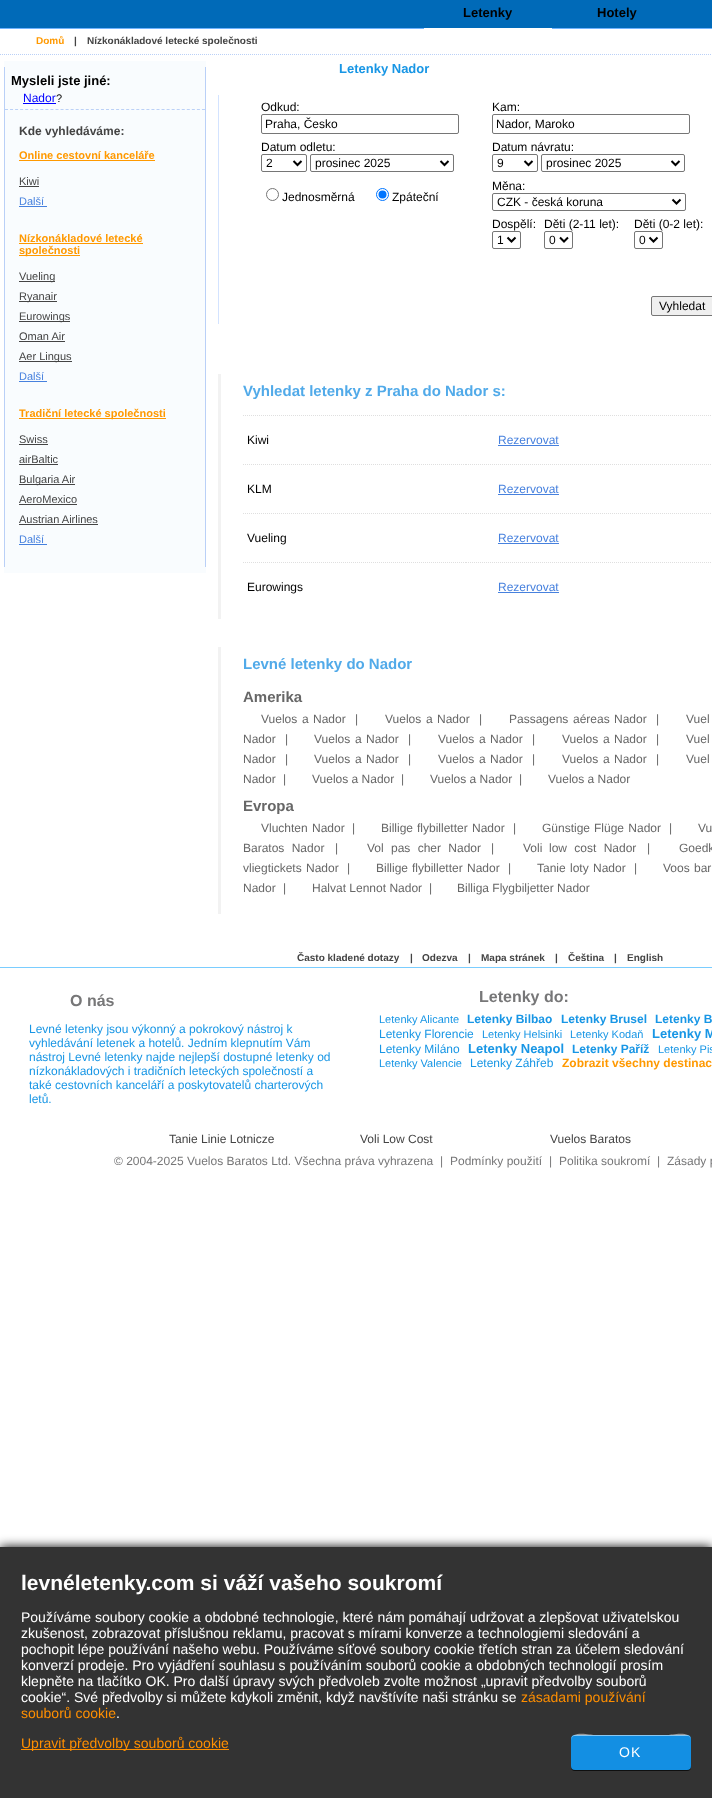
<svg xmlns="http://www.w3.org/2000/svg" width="712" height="1798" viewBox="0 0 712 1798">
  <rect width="100%" height="100%" fill="#fff"/>
  <path d="M0 0h712v28H0z" fill="#006ab8"/>
  <path d="M552 28h160v1H552z" fill="#6fb3fe"/>
  <path d="M0 28h424v1H0z" fill="#6fb3fe"/>
  <path d="M0 54.5H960" fill="none" stroke="#bad0f7" stroke-dasharray="1 1"/>
  <path d="M4 61h202v512H4z" fill="#f9fcfe"/>
  <path d="M205 67h1v500H205z" fill="#bad0f7"/>
  <path d="M4 67h1v500H4z" fill="#bad0f7"/>
  <path d="M5 109.5H205" fill="none" stroke="#bbd1f7" stroke-dasharray="3 2.05"/>
  <path d="M23 103h33v1H23z" fill="#00f"/>
  <path d="M19 160h136v1H19z" fill="#f90"/>
  <path d="M19 186h20v1H19z" fill="#444"/>
  <path d="M19 206h28v1H19z" fill="#4781de"/>
  <path d="M19 243h124v1H19z" fill="#f90"/>
  <path d="M19 255h61v1H19z" fill="#f90"/>
  <path d="M19 281h36v1H19z" fill="#444"/>
  <path d="M19 301h38v1H19z" fill="#444"/>
  <path d="M19 321h51v1H19z" fill="#444"/>
  <path d="M19 341h46v1H19z" fill="#444"/>
  <path d="M19 361h53v1H19z" fill="#444"/>
  <path d="M19 381h28v1H19z" fill="#4781de"/>
  <path d="M19 418h147v1H19z" fill="#f90"/>
  <path d="M19 444h29v1H19z" fill="#444"/>
  <path d="M19 464h39v1H19z" fill="#444"/>
  <path d="M19 484h56v1H19z" fill="#444"/>
  <path d="M19 504h58v1H19z" fill="#444"/>
  <path d="M19 524h79v1H19z" fill="#444"/>
  <path d="M19 544h28v1H19z" fill="#4781de"/>
  <path d="M218 95h1v229H218z" fill="#d3e3ff"/>
  <rect x="261.5" y="114.5" width="197" height="19" rx="1.5" fill="none" stroke="#767676"/>
  <rect x="492.5" y="114.5" width="197" height="19" rx="1.5" fill="none" stroke="#767676"/>
  <rect x="261.5" y="154.5" width="45" height="17" rx="1.5" fill="none" stroke="#767676"/>
  <path d="M293.5 161L297.5 165L301.5 161" fill="none" stroke="#000" stroke-width="2"/>
  <rect x="310.5" y="154.5" width="143" height="17" rx="1.5" fill="none" stroke="#767676"/>
  <path d="M440.5 161L444.5 165L448.5 161" fill="none" stroke="#000" stroke-width="2"/>
  <rect x="492.5" y="154.5" width="45" height="17" rx="1.5" fill="none" stroke="#767676"/>
  <path d="M524.5 161L528.5 165L532.5 161" fill="none" stroke="#000" stroke-width="2"/>
  <rect x="541.5" y="154.5" width="143" height="17" rx="1.5" fill="none" stroke="#767676"/>
  <path d="M671.5 161L675.5 165L679.5 161" fill="none" stroke="#000" stroke-width="2"/>
  <circle cx="272.5" cy="194.5" r="6" fill="none" stroke="#767676"/>
  <circle cx="382.5" cy="194.5" r="6" fill="none" stroke="#0075ff"/>
  <circle cx="382.5" cy="194.5" r="4" fill="#0075ff"/>
  <rect x="492.5" y="193.5" width="193" height="17" rx="1.5" fill="none" stroke="#767676"/>
  <path d="M672.5 199.5L676.5 203.5L680.5 199.5" fill="none" stroke="#000" stroke-width="2"/>
  <rect x="492.5" y="231.5" width="28" height="17" rx="1.5" fill="none" stroke="#767676"/>
  <path d="M507.5 237.5L511.5 241.5L515.5 237.5" fill="none" stroke="#000" stroke-width="2"/>
  <rect x="544.5" y="231.5" width="28" height="17" rx="1.5" fill="none" stroke="#767676"/>
  <path d="M560 237.5L564 241.5L568 237.5" fill="none" stroke="#000" stroke-width="2"/>
  <rect x="634.5" y="231.5" width="28" height="17" rx="1.5" fill="none" stroke="#767676"/>
  <path d="M649.5 237.5L653.5 241.5L657.5 237.5" fill="none" stroke="#000" stroke-width="2"/>
  <rect x="651.5" y="296.5" width="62" height="19" rx="1.5" fill="#efefef" stroke="#767676"/>
  <path d="M218 374h3v245H218z" fill="#f2f2f2"/>
  <path d="M466 415.5H494" fill="none" stroke="#dfdfdf" stroke-dasharray="1 1"/>
  <path d="M243 415.5H466" fill="none" stroke="#dfdfdf" stroke-dasharray="1 1"/>
  <path d="M494 415.5H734" fill="none" stroke="#dfdfdf" stroke-dasharray="1 1"/>
  <path d="M498 445h61v1H498z" fill="#4781de"/>
  <path d="M466 464.5H494" fill="none" stroke="#dfdfdf" stroke-dasharray="1 1"/>
  <path d="M243 464.5H466" fill="none" stroke="#dfdfdf" stroke-dasharray="1 1"/>
  <path d="M494 464.5H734" fill="none" stroke="#dfdfdf" stroke-dasharray="1 1"/>
  <path d="M498 494h61v1H498z" fill="#4781de"/>
  <path d="M466 513.5H494" fill="none" stroke="#dfdfdf" stroke-dasharray="1 1"/>
  <path d="M243 513.5H466" fill="none" stroke="#dfdfdf" stroke-dasharray="1 1"/>
  <path d="M494 513.5H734" fill="none" stroke="#dfdfdf" stroke-dasharray="1 1"/>
  <path d="M498 543h61v1H498z" fill="#4781de"/>
  <path d="M466 562.5H494" fill="none" stroke="#dfdfdf" stroke-dasharray="1 1"/>
  <path d="M243 562.5H466" fill="none" stroke="#dfdfdf" stroke-dasharray="1 1"/>
  <path d="M494 562.5H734" fill="none" stroke="#dfdfdf" stroke-dasharray="1 1"/>
  <path d="M498 592h61v1H498z" fill="#4781de"/>
  <path d="M218 647h3v267H218z" fill="#f2f2f2"/>
  <path d="M0 967h712v1H0z" fill="#7acdff"/>
  <path d="M0 1547h712v251H0z" fill="#000" filter="blur(5.5px)"/>
  <path d="M0 1547h712v251H0z" fill="#333"/>
  <path d="M21 1749h208v1H21z" fill="#ff8f00"/>
  <rect x="571" y="1736" width="120" height="35" rx="4" fill="#000000b3" filter="blur(0.5px)"/>
  <rect x="571" y="1735" width="120" height="35" rx="4" fill="#138fe3"/>
  <path d="M574 1736H688C689 1736 691 1738 691 1740C691 1730 671 1735 668 1735H594C591 1735 571 1730 571 1740C571 1738 573 1736 574 1736Z" fill="#ffffff80"/>
  <g font-family="Liberation Sans" font-size="13" font-weight="bold" fill="#000">
    <text x="463" y="17">Letenky</text>
    <text x="597" y="17">Hotely</text>
  </g>
  <text x="36" y="44" font-family="Liberation Sans" font-size="10" font-weight="bold" fill="#f90">Domů</text>
  <g font-family="Liberation Sans" font-size="10" font-weight="bold" fill="#444">
    <text x="74" y="44">|</text>
    <text x="87" y="44">Nízkonákladové letecké společnosti</text>
  </g>
  <text x="11" y="85" font-family="Liberation Sans" font-size="13" font-weight="bold" fill="#000">Mysleli jste jiné:</text>
  <text x="23" y="102" font-family="Liberation Sans" font-size="12" fill="#00f">Nador</text>
  <text x="56" y="102" font-family="Liberation Sans" font-size="11" fill="#000">?</text>
  <text x="19" y="135" font-family="Liberation Sans" font-size="12" font-weight="bold" fill="#444">Kde vyhledáváme:</text>
  <text x="19" y="159" font-family="Liberation Sans" font-size="11" font-weight="bold" fill="#f90">Online cestovní kanceláře</text>
  <text x="19" y="185" font-family="Liberation Sans" font-size="11" fill="#444">Kiwi</text>
  <text x="19" y="205" font-family="Liberation Sans" font-size="11" fill="#4781de">Další</text>
  <g font-family="Liberation Sans" font-size="11" font-weight="bold" fill="#f90">
    <text x="19" y="242">Nízkonákladové letecké</text>
    <text x="19" y="254">společnosti</text>
  </g>
  <g font-family="Liberation Sans" font-size="11" fill="#444">
    <text x="19" y="280">Vueling</text>
    <text x="19" y="300">Ryanair</text>
    <text x="19" y="320">Eurowings</text>
    <text x="19" y="340">Oman Air</text>
    <text x="19" y="360">Aer Lingus</text>
  </g>
  <text x="19" y="380" font-family="Liberation Sans" font-size="11" fill="#4781de">Další</text>
  <text x="19" y="417" font-family="Liberation Sans" font-size="11" font-weight="bold" fill="#f90">Tradiční letecké společnosti</text>
  <g font-family="Liberation Sans" font-size="11" fill="#444">
    <text x="19" y="443">Swiss</text>
    <text x="19" y="463">airBaltic</text>
    <text x="19" y="483">Bulgaria Air</text>
    <text x="19" y="503">AeroMexico</text>
    <text x="19" y="523">Austrian Airlines</text>
  </g>
  <text x="19" y="543" font-family="Liberation Sans" font-size="11" fill="#4781de">Další</text>
  <text x="339" y="73" font-family="Liberation Sans" font-size="13" font-weight="bold" fill="#1896e5">Letenky Nador</text>
  <g font-family="Liberation Sans" font-size="12" fill="#000">
    <text x="261" y="111">Odkud:</text>
    <text x="265" y="128">Praha, Česko</text>
    <text x="492" y="111">Kam:</text>
    <text x="496" y="128">Nador, Maroko</text>
    <text x="261" y="151">Datum odletu:</text>
    <text x="266" y="167">2</text>
    <text x="315" y="167">prosinec 2025</text>
    <text x="492" y="151">Datum návratu:</text>
    <text x="497" y="167">9</text>
    <text x="546" y="167">prosinec 2025</text>
    <text x="282" y="201">Jednosměrná</text>
    <text x="392" y="201">Zpáteční</text>
    <text x="492" y="190">Měna:</text>
    <text x="497" y="206">CZK - česká koruna</text>
    <text x="492" y="228">Dospělí:</text>
    <text x="497" y="244">1</text>
    <text x="544" y="228">Děti (2-11 let):</text>
    <text x="549" y="244">0</text>
    <text x="634" y="228">Děti (0-2 let):</text>
    <text x="639" y="244">0</text>
    <text x="659" y="310">Vyhledat</text>
  </g>
  <text x="243" y="396" font-family="Liberation Sans" font-size="15" font-weight="bold" fill="#51aae9">Vyhledat letenky z Praha do Nador s:</text>
  <text x="247" y="444" font-family="Liberation Sans" font-size="12" fill="#000">Kiwi</text>
  <text x="498" y="444" font-family="Liberation Sans" font-size="12" fill="#4781de">Rezervovat</text>
  <text x="247" y="493" font-family="Liberation Sans" font-size="12" fill="#000">KLM</text>
  <text x="498" y="493" font-family="Liberation Sans" font-size="12" fill="#4781de">Rezervovat</text>
  <text x="247" y="542" font-family="Liberation Sans" font-size="12" fill="#000">Vueling</text>
  <text x="498" y="542" font-family="Liberation Sans" font-size="12" fill="#4781de">Rezervovat</text>
  <text x="247" y="591" font-family="Liberation Sans" font-size="12" fill="#000">Eurowings</text>
  <text x="498" y="591" font-family="Liberation Sans" font-size="12" fill="#4781de">Rezervovat</text>
  <text x="243" y="669" font-family="Liberation Sans" font-size="15" font-weight="bold" fill="#51aae9">Levné letenky do Nador</text>
  <text x="243" y="702" font-family="Liberation Sans" font-size="15" font-weight="bold" fill="#676767">Amerika</text>
  <g font-family="Liberation Sans" font-size="12" fill="#676767">
    <text x="261" y="723">Vuelos</text>
    <text x="302" y="723" word-spacing="1">a Nador</text>
    <text x="355" y="723">|</text>
    <text x="385" y="723">Vuelos</text>
    <text x="426" y="723" word-spacing="1">a Nador</text>
    <text x="479" y="723">|</text>
    <text x="509" y="723">Passagens</text>
    <text x="573" y="723" word-spacing="1">aéreas Nador</text>
    <text x="656" y="723">|</text>
    <text x="686" y="723">Vuel</text>
    <text x="243" y="743">Nador</text>
    <text x="285" y="743">|</text>
    <text x="314" y="743">Vuelos</text>
    <text x="355" y="743" word-spacing="1">a Nador</text>
    <text x="408" y="743">|</text>
    <text x="438" y="743">Vuelos</text>
    <text x="479" y="743" word-spacing="1">a Nador</text>
    <text x="532" y="743">|</text>
    <text x="562" y="743">Vuelos</text>
    <text x="603" y="743" word-spacing="1">a Nador</text>
    <text x="656" y="743">|</text>
    <text x="686" y="743">Vuel</text>
    <text x="243" y="763">Nador</text>
    <text x="285" y="763">|</text>
    <text x="314" y="763">Vuelos</text>
    <text x="355" y="763" word-spacing="1">a Nador</text>
    <text x="408" y="763">|</text>
    <text x="438" y="763">Vuelos</text>
    <text x="479" y="763" word-spacing="1">a Nador</text>
    <text x="532" y="763">|</text>
    <text x="562" y="763">Vuelos</text>
    <text x="603" y="763" word-spacing="1">a Nador</text>
    <text x="656" y="763">|</text>
    <text x="686" y="763">Vuel</text>
    <text x="243" y="783">Nador</text>
    <text x="283" y="783">|</text>
    <text x="312" y="783">Vuelos a Nador</text>
    <text x="401" y="783">|</text>
    <text x="430" y="783">Vuelos a Nador</text>
    <text x="519" y="783">|</text>
    <text x="548" y="783">Vuelos a Nador</text>
  </g>
  <text x="243" y="811" font-family="Liberation Sans" font-size="15" font-weight="bold" fill="#676767">Evropa</text>
  <g font-family="Liberation Sans" font-size="12" fill="#676767">
    <text x="261" y="832">Vluchten</text>
    <text x="312" y="832">Nador</text>
    <text x="352" y="832">|</text>
    <text x="381" y="832">Billige</text>
    <text x="417" y="832" word-spacing="1">flybilletter Nador</text>
    <text x="513" y="832">|</text>
    <text x="542" y="832">Günstige</text>
    <text x="594" y="832" word-spacing="1">Flüge Nador</text>
    <text x="669" y="832">|</text>
    <text x="698" y="832">Vu</text>
    <text x="243" y="852" word-spacing="4">Baratos Nador</text>
    <text x="335" y="852">|</text>
    <text x="367" y="852">Vol</text>
    <text x="391" y="852" word-spacing="4">pas cher Nador</text>
    <text x="491" y="852">|</text>
    <text x="523" y="852">Voli</text>
    <text x="549" y="852" word-spacing="4">low cost Nador</text>
    <text x="647" y="852">|</text>
    <text x="679" y="852">Goedk</text>
    <text x="243" y="872" word-spacing="1">vliegtickets Nador</text>
    <text x="347" y="872">|</text>
    <text x="376" y="872">Billige</text>
    <text x="412" y="872" word-spacing="1">flybilletter Nador</text>
    <text x="508" y="872">|</text>
    <text x="537" y="872">Tanie</text>
    <text x="570" y="872" word-spacing="1">loty Nador</text>
    <text x="634" y="872">|</text>
    <text x="663" y="872">Voos</text>
    <text x="694" y="872">bar</text>
    <text x="243" y="892">Nador</text>
    <text x="283" y="892">|</text>
    <text x="312" y="892">Halvat Lennot Nador</text>
    <text x="429" y="892">|</text>
    <text x="457" y="892">Billiga Flygbiljetter Nador</text>
  </g>
  <g font-family="Liberation Sans" font-size="10" font-weight="bold" fill="#444">
    <text x="297" y="961">Často kladené dotazy</text>
    <text x="410" y="961">|</text>
    <text x="422" y="961">Odezva</text>
    <text x="468" y="961">|</text>
    <text x="481" y="961">Mapa stránek</text>
    <text x="555" y="961">|</text>
    <text x="568" y="961">Čeština</text>
    <text x="614" y="961">|</text>
    <text x="627" y="961">English</text>
  </g>
  <text x="70" y="1006" font-family="Liberation Sans" font-size="16" font-weight="bold" fill="#777778">O nás</text>
  <g font-family="Liberation Sans" font-size="12" fill="#1896e5">
    <text x="29" y="1033">Levné letenky jsou výkonný a pokrokový nástroj k</text>
    <text x="29" y="1047">vyhledávání letenek a hotelů. Jedním klepnutím Vám</text>
    <text x="29" y="1061">nástroj Levné letenky najde nejlepší dostupné letenky od</text>
    <text x="29" y="1075">nízkonákladových i tradičních leteckých společností a</text>
    <text x="29" y="1089">také cestovních kanceláří a poskytovatelů charterových</text>
    <text x="29" y="1103">letů.</text>
  </g>
  <text x="479" y="1002" font-family="Liberation Sans" font-size="16" font-weight="bold" fill="#777778">Letenky do:</text>
  <text x="379" y="1023" font-family="Liberation Sans" font-size="11" fill="#1896e5">Letenky Alicante</text>
  <g font-family="Liberation Sans" font-size="12" font-weight="bold" fill="#1896e5">
    <text x="467" y="1023">Letenky Bilbao</text>
    <text x="561" y="1023">Letenky Brusel</text>
    <text x="655" y="1023">Letenky B</text>
  </g>
  <text x="379" y="1038" font-family="Liberation Sans" font-size="12" fill="#1896e5">Letenky Florencie</text>
  <g font-family="Liberation Sans" font-size="11" fill="#1896e5">
    <text x="482" y="1038">Letenky Helsinki</text>
    <text x="570" y="1038">Letenky Kodaň</text>
  </g>
  <text x="652" y="1038" font-family="Liberation Sans" font-size="13" font-weight="bold" fill="#1896e5">Letenky M</text>
  <text x="379" y="1053" font-family="Liberation Sans" font-size="12" fill="#1896e5">Letenky Miláno</text>
  <text x="468" y="1053" font-family="Liberation Sans" font-size="13" font-weight="bold" fill="#1896e5">Letenky Neapol</text>
  <text x="572" y="1053" font-family="Liberation Sans" font-size="12" font-weight="bold" fill="#1896e5">Letenky Paříž</text>
  <g font-family="Liberation Sans" font-size="11" fill="#1896e5">
    <text x="658" y="1053">Letenky Pis</text>
    <text x="379" y="1067">Letenky Valencie</text>
  </g>
  <text x="470" y="1067" font-family="Liberation Sans" font-size="12" fill="#1896e5">Letenky Záhřeb</text>
  <text x="562" y="1067" font-family="Liberation Sans" font-size="12" font-weight="bold" fill="#f90">Zobrazit všechny destinac</text>
  <g font-family="Liberation Sans" font-size="12" fill="#444">
    <text x="169" y="1143">Tanie Linie Lotnicze</text>
    <text x="360" y="1143">Voli Low Cost</text>
    <text x="550" y="1143">Vuelos Baratos</text>
  </g>
  <g font-family="Liberation Sans" font-size="12" fill="#777778">
    <text x="114" y="1165">© 2004-2025 Vuelos Baratos Ltd. Všechna práva vyhrazena</text>
    <text x="440" y="1165">|</text>
    <text x="450" y="1165">Podmínky použití</text>
    <text x="549" y="1165">|</text>
    <text x="559" y="1165">Politika soukromí</text>
    <text x="657" y="1165">|</text>
    <text x="667" y="1165">Zásady p</text>
  </g>
  <text x="21" y="1590" font-family="Liberation Sans" font-size="21" font-weight="bold" fill="#fff">levnéletenky.com si váží vašeho soukromí</text>
  <g font-family="Liberation Sans" font-size="14" fill="#fff">
    <text x="21" y="1622">Používáme soubory cookie a obdobné technologie, které nám pomáhají udržovat a zlepšovat uživatelskou</text>
    <text x="21" y="1638">zkušenost, zobrazovat příslušnou reklamu, pracovat s mírami konverze a technologiemi sledování a</text>
    <text x="21" y="1654">pochopit lépe používání našeho webu. Používáme síťové soubory cookie třetích stran za účelem sledování</text>
    <text x="21" y="1670">konverzí prodeje. Pro vyjádření souhlasu s používáním souborů cookie a obdobných technologií prosím</text>
    <text x="21" y="1686">klepněte na tlačítko OK. Pro další úpravy svých předvoleb zvolte možnost „upravit předvolby souborů</text>
    <text x="21" y="1702">cookie“. Své předvolby si můžete kdykoli změnit, když navštívíte naši stránku se</text>
  </g>
  <g font-family="Liberation Sans" font-size="14" fill="#ff8f00">
    <text x="521" y="1702">zásadami používání</text>
    <text x="21" y="1718">souborů cookie</text>
  </g>
  <text x="116" y="1718" font-family="Liberation Sans" font-size="14" fill="#fff">.</text>
  <text x="21" y="1748" font-family="Liberation Sans" font-size="14" fill="#ff8f00">Upravit předvolby souborů cookie</text>
  <text x="619" y="1757" font-family="Liberation Sans" font-size="14" letter-spacing="1" fill="#fff">OK</text>
</svg>
